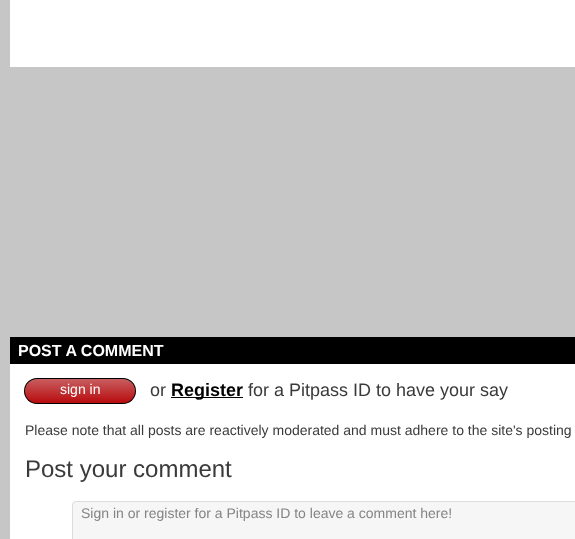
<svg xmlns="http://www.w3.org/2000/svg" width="575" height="539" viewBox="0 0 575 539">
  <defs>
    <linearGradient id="g1" gradientUnits="userSpaceOnUse" x1="80" y1="379" x2="80" y2="403"><stop offset="0" stop-color="#c75e5f"/><stop offset="1" stop-color="#b90b0e"/></linearGradient>
  </defs>
  <rect width="100%" height="100%" fill="#c7c6c6"/>
  <path d="M10 0h565v67H10z" fill="#fff"/>
  <path d="M10 364h565v175H10z" fill="#fff"/>
  <path d="M10 337h565v27H10z" fill="#000"/>
  <rect x="24" y="378" width="112" height="26" rx="13" fill="#000" filter="blur(0.5px)"/>
  <rect x="25" y="379" width="110" height="24" rx="12" fill="url(#g1)"/>
  <path d="M171 397h72v1H171z" fill="#000"/>
  <rect x="72.5" y="501.5" width="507" height="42" rx="3.5" fill="#f6f6f6" stroke="#dcdcdc"/>
  <text x="18" y="356" font-family="Liberation Sans" font-size="16" font-weight="bold" fill="#fff">POST A COMMENT</text>
  <text x="60" y="394" font-family="Liberation Sans" font-size="14" fill="#fff">sign in</text>
  <text x="150" y="396" font-family="Liberation Sans" font-size="18" fill="#3a3a3a">or</text>
  <text x="171" y="396" font-family="Liberation Sans" font-size="18" font-weight="bold" fill="#000">Register</text>
  <text x="248" y="396" font-family="Liberation Sans" font-size="18" fill="#3a3a3a">for a Pitpass ID to have your say</text>
  <text x="25" y="435" font-family="Liberation Sans" font-size="14" fill="#3a3a3a">Please note that all posts are reactively moderated and must adhere to the site's posting</text>
  <text x="25" y="477" font-family="Liberation Sans" font-size="24" fill="#3a3a3a">Post your comment</text>
  <text x="81" y="518" font-family="Liberation Sans" font-size="14" fill="#848484">Sign in or register for a Pitpass ID to leave a comment here!</text>
</svg>
